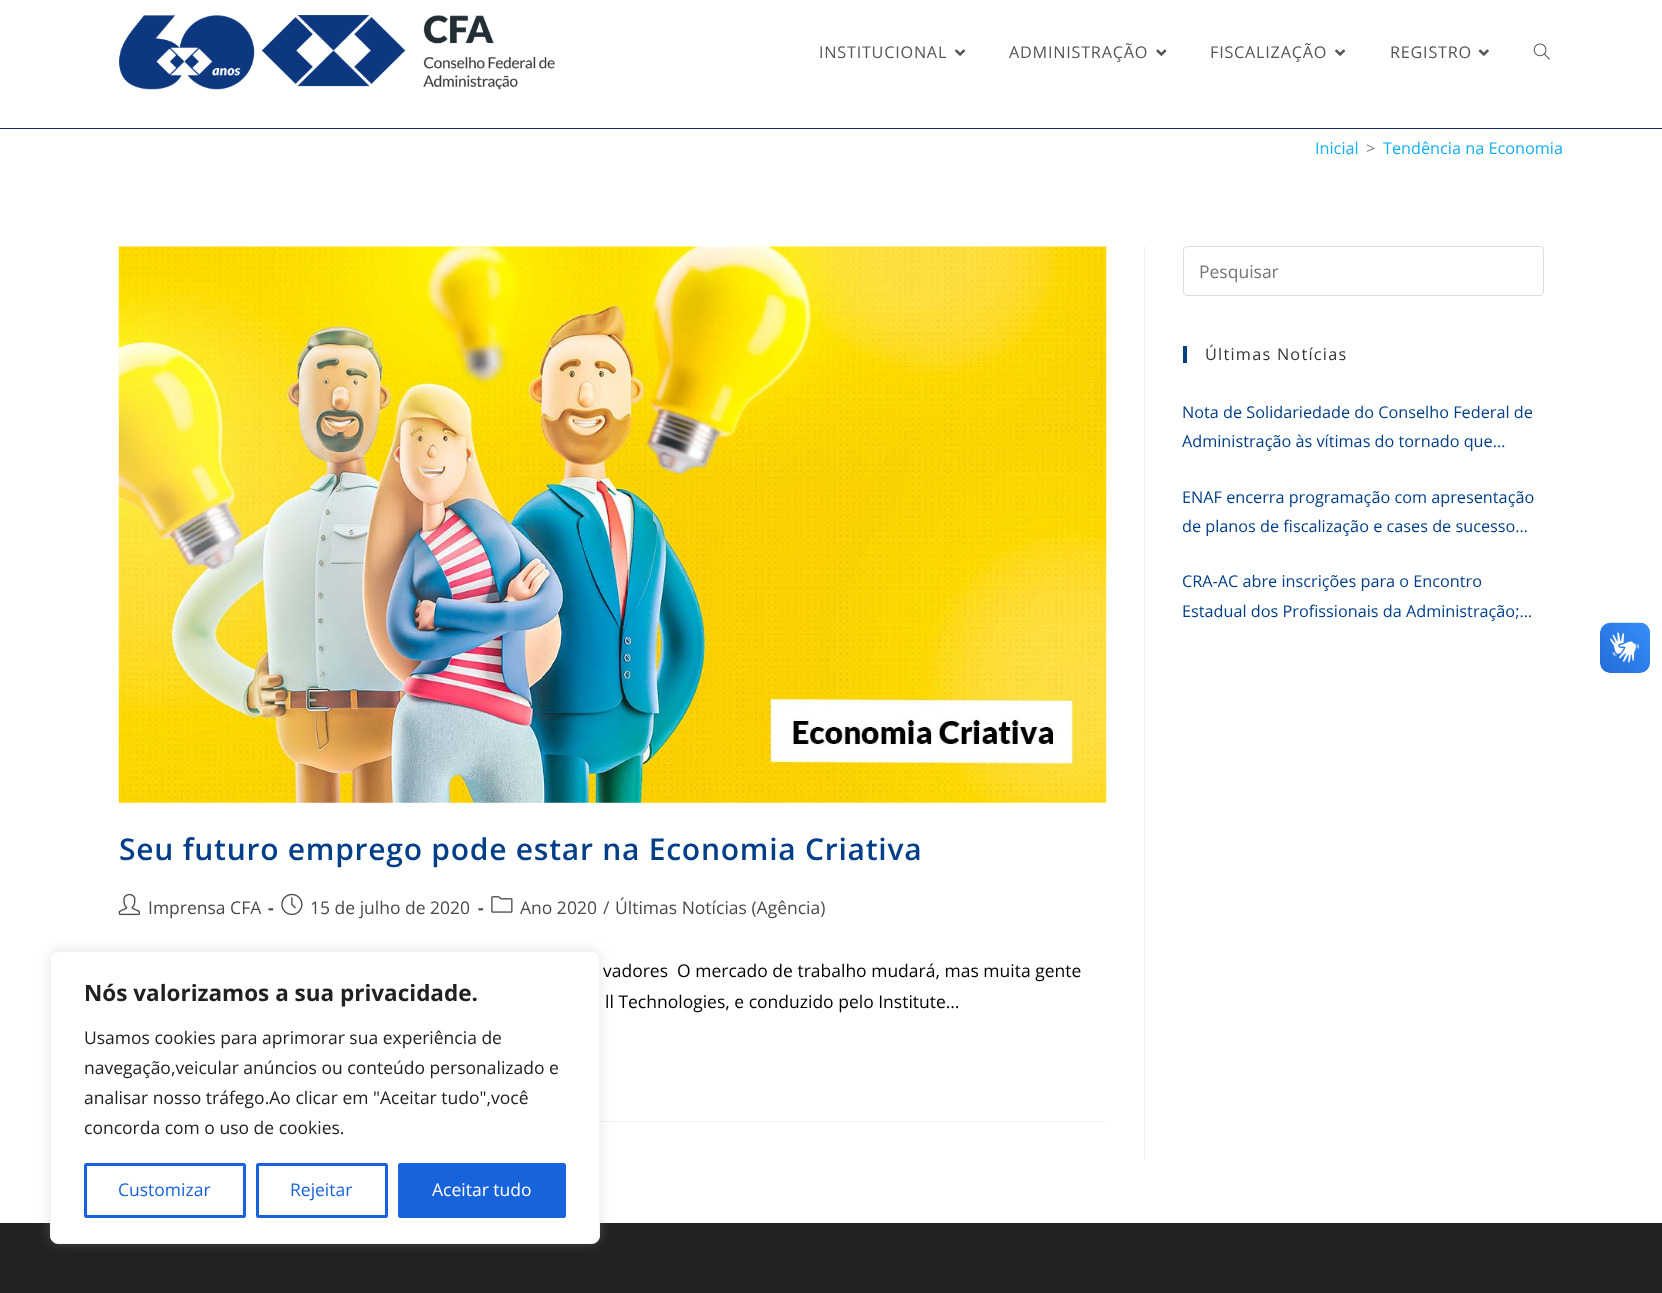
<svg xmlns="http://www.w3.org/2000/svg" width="1662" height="1293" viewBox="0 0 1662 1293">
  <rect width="100%" height="100%" fill="#fff"/>
  <path d="M0 128h1662v1H0z" fill="#15267b"/>
  <image x="119" y="15" width="436" height="75" href="img/1.png"/>
  <image x="955" y="49" width="11" height="7" href="img/2.png"/>
  <image x="1156" y="49" width="11" height="7" href="img/3.png"/>
  <image x="1335" y="49" width="11" height="7" href="img/2.png"/>
  <image x="1478" y="49" width="11" height="7" href="img/4.png"/>
  <image x="1533" y="43" width="17" height="17" href="img/5.png"/>
  <rect x="1183.5" y="246.5" width="360" height="49" rx="3.5" fill="none" stroke="#ddd"/>
  <path d="M1183 346h4v17H1183z" fill="#023f88"/>
  <path d="M1144 246h1v914H1144z" fill="#f1f1f1"/>
  <path d="M600 1121h506v1H600z" fill="#f1f1f1"/>
  <image x="118" y="246" width="989" height="557" href="img/6.png"/>
  <image x="118" y="893" width="22" height="23" href="img/7.png"/>
  <image x="281" y="893" width="22" height="23" href="img/8.png"/>
  <image x="491" y="896" width="22" height="17" href="img/9.png"/>
  <path d="M0 1223h1662v70H0z" fill="#222"/>
  <image x="1600" y="622" width="50" height="51" href="img/10.png"/>
  <image x="1600" y="623" width="50" height="50" href="img/11.png"/>
  <rect x="50" y="950" width="550" height="293" rx="8" fill="#acabab4d" filter="blur(6px)"/>
  <rect x="50.5" y="951.5" width="549" height="292" rx="7.5" fill="#fff" stroke="#f4f4f4"/>
  <rect x="85.5" y="1164.5" width="159" height="52" rx="1" fill="none" stroke="#1863dc" stroke-width="3"/>
  <rect x="257.5" y="1164.5" width="129" height="52" rx="1" fill="none" stroke="#1863dc" stroke-width="3"/>
  <rect x="399.5" y="1164.5" width="165" height="52" rx="1" fill="#1863dc" stroke="#1863dc" stroke-width="3"/>
  <g font-family="Open Sans" font-size="16.25" letter-spacing="0.75" fill="#555">
    <text x="819" y="58">INSTITUCIONAL</text>
    <text x="1009" y="58">ADMINISTRAÇÃO</text>
    <text x="1210" y="58">FISCALIZAÇÃO</text>
    <text x="1390" y="58">REGISTRO</text>
  </g>
  <text x="1315" y="154" font-family="Open Sans" font-size="16.25" fill="#13aff0">Inicial</text>
  <text x="1366" y="154" font-family="Open Sans" font-size="16.25" fill="#757575">&gt;</text>
  <text x="1383" y="154" font-family="Open Sans" font-size="16.25" fill="#13aff0">Tendência na Economia</text>
  <text x="1199" y="278" font-family="Open Sans" font-size="17.5" fill="#757575">Pesquisar</text>
  <text x="1205" y="360" font-family="Open Sans" font-size="16.25" letter-spacing="1.25" fill="#333">Últimas Notícias</text>
  <g font-family="Open Sans" font-size="16.25" fill="#023f88">
    <text x="1182" y="418">Nota de Solidariedade do Conselho Federal de</text>
    <text x="1182" y="447">Administração às vítimas do tornado que…</text>
    <text x="1182" y="503">ENAF encerra programação com apresentação</text>
    <text x="1182" y="532">de planos de fiscalização e cases de sucesso…</text>
    <text x="1182" y="587">CRA-AC abre inscrições para o Encontro</text>
    <text x="1182" y="617">Estadual dos Profissionais da Administração;…</text>
  </g>
  <text x="119" y="860" font-family="Open Sans" font-size="30" font-weight="600" letter-spacing="0.75" fill="#023f88">Seu futuro emprego pode estar na Economia Criativa</text>
  <text x="148" y="914" font-family="Open Sans" font-size="17.5" fill="#4a4a4a">Imprensa CFA</text>
  <text x="268" y="914" font-family="Open Sans" font-size="17.5" font-weight="bold" fill="#4a4a4a">-</text>
  <text x="310" y="914" font-family="Open Sans" font-size="17.5" fill="#4a4a4a">15 de julho de 2020</text>
  <text x="478" y="914" font-family="Open Sans" font-size="17.5" font-weight="bold" fill="#4a4a4a">-</text>
  <g font-family="Open Sans" font-size="17.5" fill="#4a4a4a">
    <text x="520" y="914">Ano 2020</text>
    <text x="603" y="914">/</text>
    <text x="615" y="914">Últimas Notícias (Agência)</text>
  </g>
  <g font-family="Open Sans" font-size="17.5" fill="#000">
    <text x="603" y="977" xml:space="preserve">vadores  O mercado de trabalho mudará, mas muita gente</text>
    <text x="605" y="1008">ll Technologies, e conduzido pelo Institute…</text>
  </g>
  <text x="84" y="1001" font-family="Open Sans" font-size="22.5" font-weight="bold" fill="#212121">Nós valorizamos a sua privacidade.</text>
  <g font-family="Open Sans" font-size="17.5" fill="#212121">
    <text x="84" y="1044">Usamos cookies para aprimorar sua experiência de</text>
    <text x="84" y="1074">navegação,veicular anúncios ou conteúdo personalizado e</text>
    <text x="84" y="1104">analisar nosso tráfego.Ao clicar em "Aceitar tudo",você</text>
    <text x="84" y="1134">concorda com o uso de cookies.</text>
  </g>
  <g font-family="Open Sans" font-size="17.5" fill="#1863dc">
    <text x="118" y="1196">Customizar</text>
    <text x="290" y="1196">Rejeitar</text>
  </g>
  <text x="432" y="1196" font-family="Open Sans" font-size="17.5" fill="#fff">Aceitar tudo</text>
</svg>
